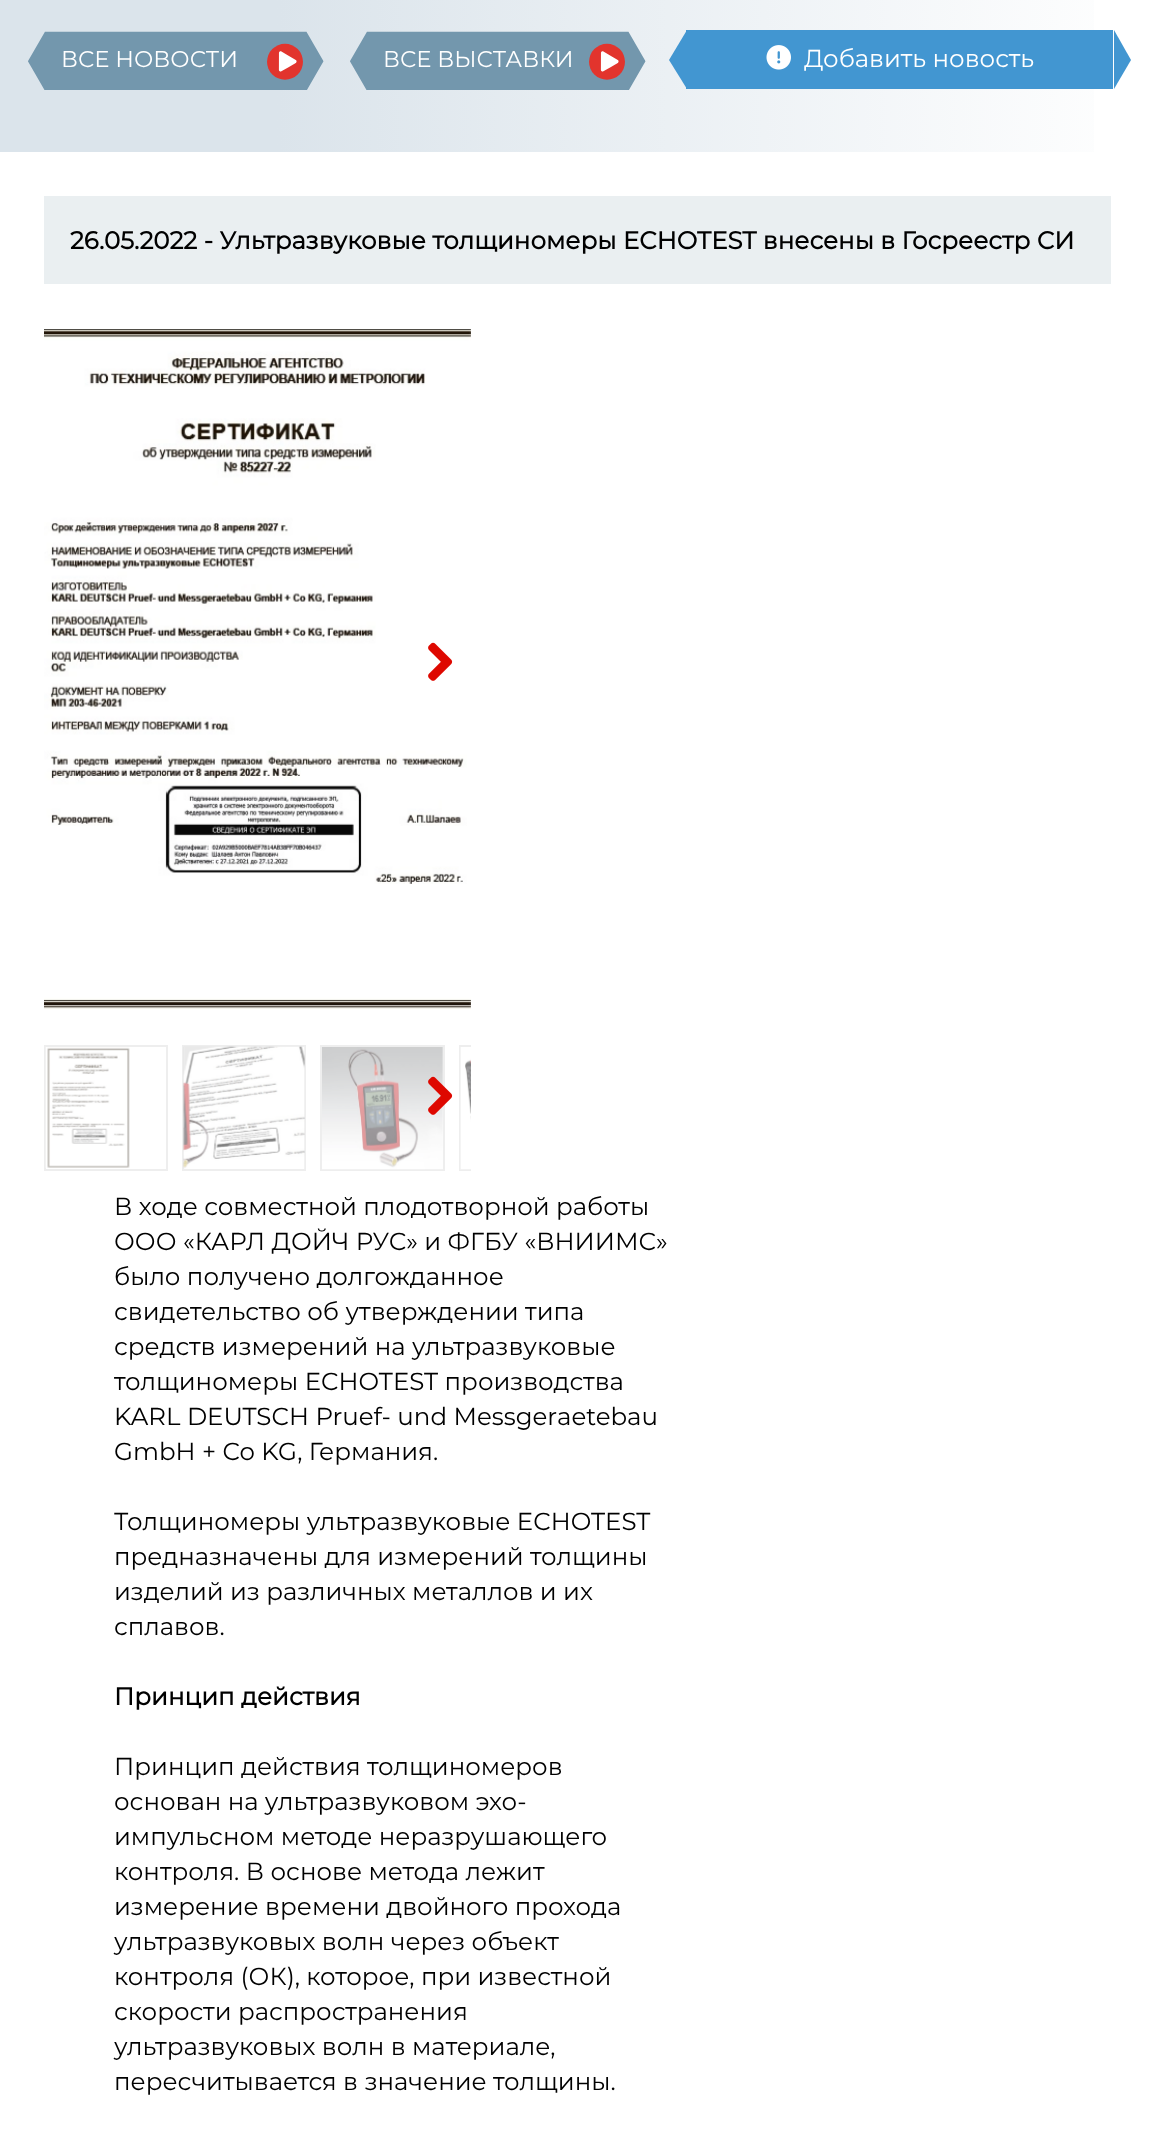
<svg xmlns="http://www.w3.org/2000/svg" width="1154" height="2142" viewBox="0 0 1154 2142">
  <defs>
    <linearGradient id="g1" gradientUnits="userSpaceOnUse" x1="0" y1="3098" x2="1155" y2="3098"><stop offset="0.24" stop-color="#dbe4eb"/><stop offset="1" stop-color="#fff"/></linearGradient>
    <clipPath id="clip1"><path d="M44 1045h427v126H44z"/></clipPath>
  </defs>
  <rect width="100%" height="100%" fill="#fff"/>
  <path d="M0 0h1094v152H0z" fill="url(#g1)"/>
  <image x="28" y="31" width="296" height="59" href="img/1.png"/>
  <image x="350" y="31" width="296" height="59" href="img/2.png"/>
  <path d="M686 30h427v59H686z" fill="#4296d1"/>
  <path d="M687 30V89L669 60Z" fill="#4296d1"/>
  <image x="766" y="45" width="25" height="25" href="img/3.png"/>
  <path d="M1114 89V30L1131 60Z" fill="#4296d1"/>
  <path d="M44 196h1067v88H44z" fill="#eaeff1"/>
  <image x="44" y="329" width="427" height="681" href="img/4.png"/>
  <image x="428" y="642" width="25" height="39" href="img/5.png"/>
  <path d="M45 1046h122v124H45z" fill="none" stroke="#eee" stroke-width="2"/>
  <image x="45" y="1047" width="85" height="121" href="img/6.png"/>
  <path d="M183 1046h122v124H183z" fill="none" stroke="#eee" stroke-width="2"/>
  <image x="183" y="1046" width="122" height="123" href="img/7.png"/>
  <path d="M321 1046h123v124H321z" fill="none" stroke="#eee" stroke-width="2"/>
  <image x="322" y="1047" width="121" height="123" href="img/8.png"/>
  <g clip-path="url(#clip1)">
    <path d="M460 1046h122v124H460z" fill="none" stroke="#eee" stroke-width="2"/>
  </g>
  <image x="460" y="1047" width="11" height="123" href="img/9.png"/>
  <image x="428" y="1076" width="25" height="39" href="img/10.png"/>
  <g font-family="Montserrat" font-size="22.75" fill="#fff">
    <text x="61" y="67">ВСЕ НОВОСТИ</text>
    <text x="383" y="67">ВСЕ ВЫСТАВКИ</text>
  </g>
  <text x="804" y="67" font-family="Montserrat" font-size="24.5" fill="#fff">Добавить новость</text>
  <text x="70" y="249" font-family="Montserrat" font-size="24.5" font-weight="bold" fill="#000">26.05.2022 - Ультразвуковые толщиномеры ECHOTEST внесены в Госреестр СИ</text>
  <g font-family="Montserrat" font-size="24.5" fill="#000">
    <text x="114" y="1215">В ходе совместной плодотворной работы</text>
    <text x="114" y="1250">ООО «КАРЛ ДОЙЧ РУС» и ФГБУ «ВНИИМС»</text>
    <text x="114" y="1285">было получено долгожданное</text>
    <text x="114" y="1320">свидетельство об утверждении типа</text>
    <text x="114" y="1355">средств измерений на ультразвуковые</text>
    <text x="114" y="1390">толщиномеры ECHOTEST производства</text>
    <text x="114" y="1425">KARL DEUTSCH Pruef- und Messgeraetebau</text>
    <text x="114" y="1460">GmbH + Co KG, Германия.</text>
    <text x="114" y="1530">Толщиномеры ультразвуковые ECHOTEST</text>
    <text x="114" y="1565">предназначены для измерений толщины</text>
    <text x="114" y="1600">изделий из различных металлов и их</text>
    <text x="114" y="1635">сплавов.</text>
  </g>
  <text x="114" y="1705" font-family="Montserrat" font-size="24.5" font-weight="bold" fill="#000">Принцип действия</text>
  <g font-family="Montserrat" font-size="24.5" fill="#000">
    <text x="114" y="1775">Принцип действия толщиномеров</text>
    <text x="114" y="1810">основан на ультразвуковом эхо-</text>
    <text x="114" y="1845">импульсном методе неразрушающего</text>
    <text x="114" y="1880">контроля. В основе метода лежит</text>
    <text x="114" y="1915">измерение времени двойного прохода</text>
    <text x="114" y="1950">ультразвуковых волн через объект</text>
    <text x="114" y="1985">контроля (ОК), которое, при известной</text>
    <text x="114" y="2020">скорости распространения</text>
    <text x="114" y="2055">ультразвуковых волн в материале,</text>
    <text x="114" y="2090">пересчитывается в значение толщины.</text>
  </g>
</svg>
